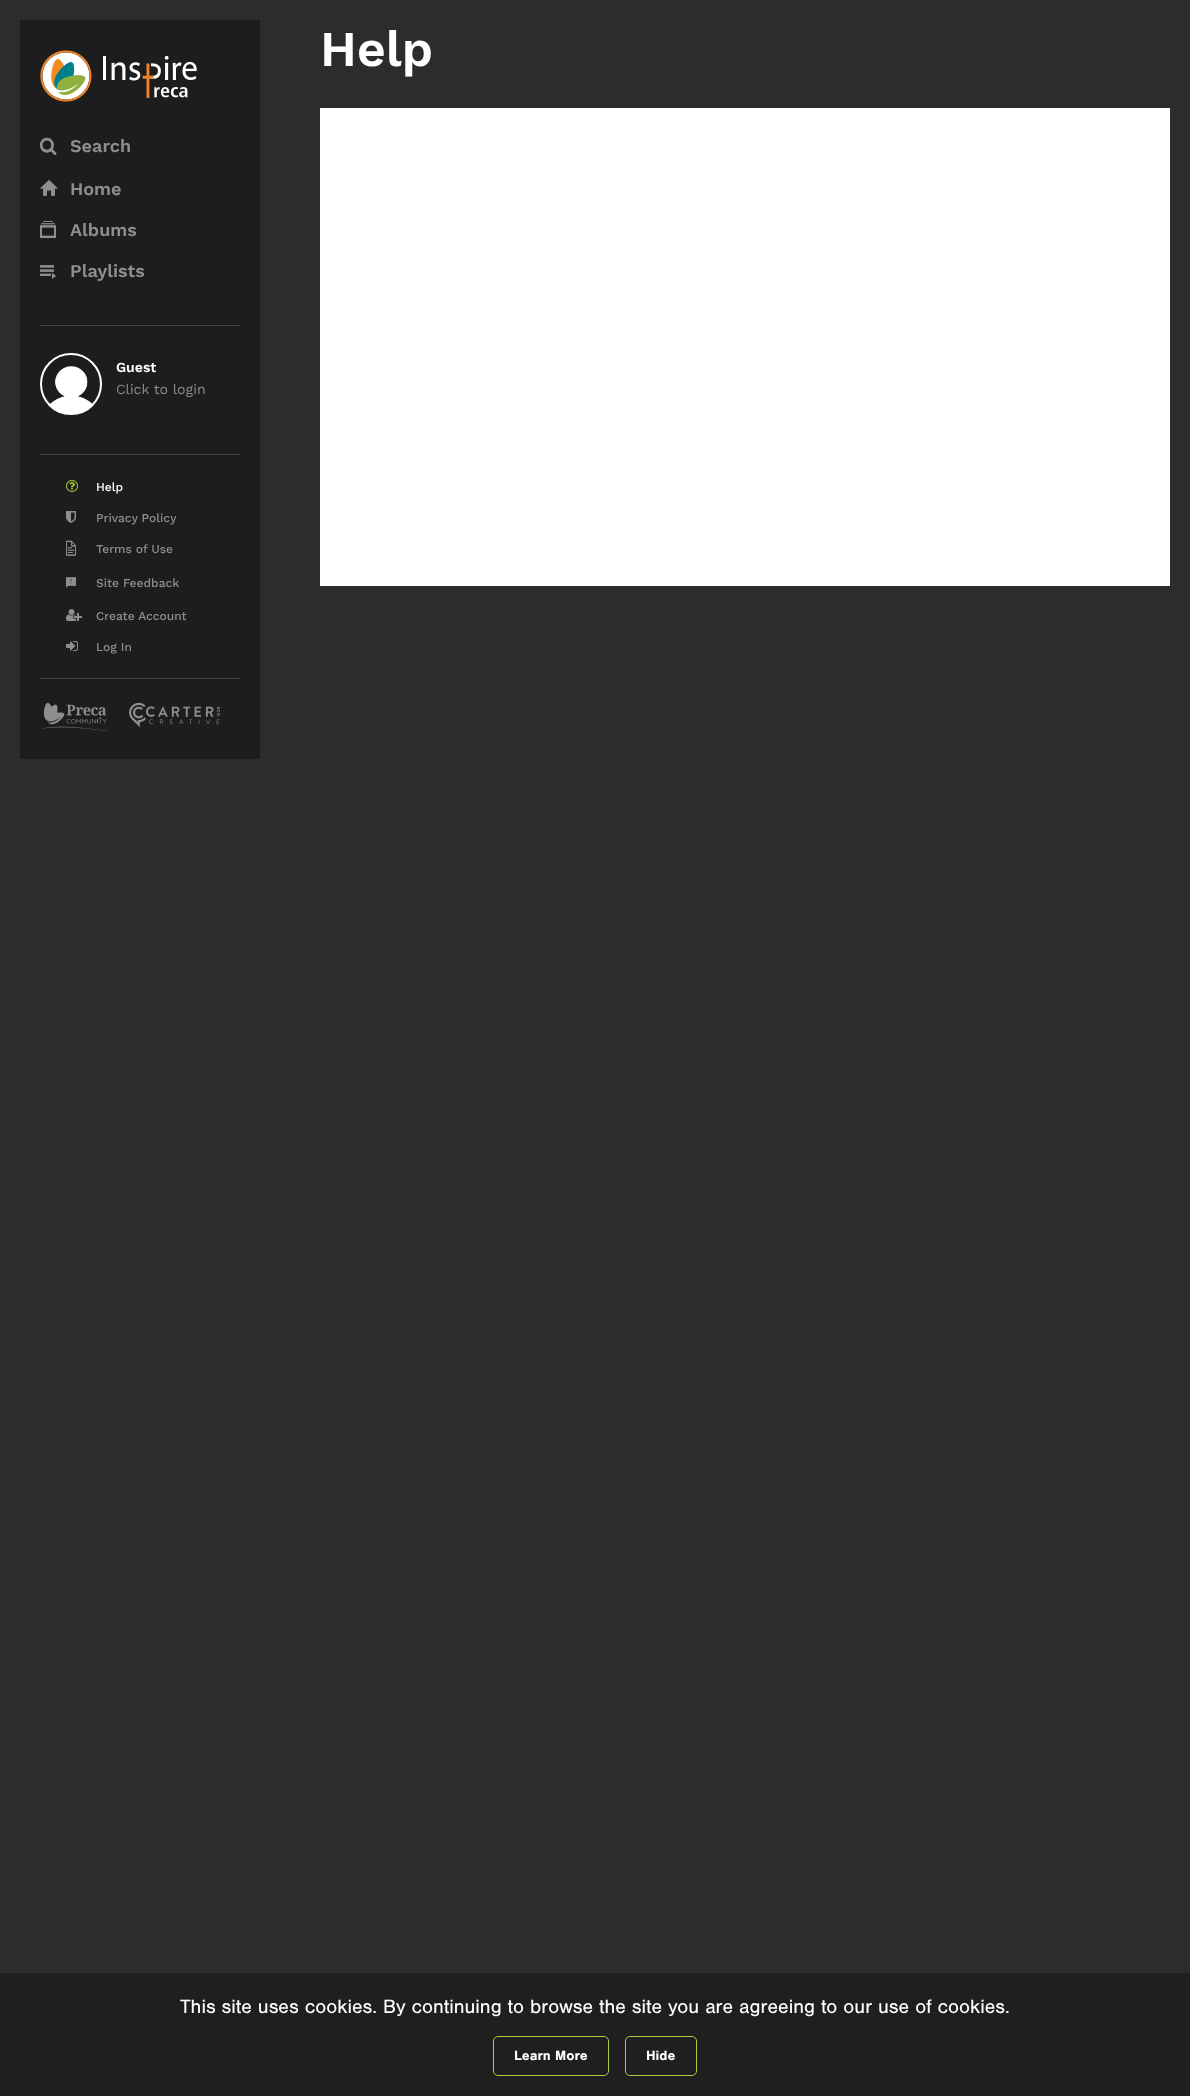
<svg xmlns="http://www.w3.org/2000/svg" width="1190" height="2096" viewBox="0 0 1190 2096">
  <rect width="100%" height="100%" fill="#2c2c2c"/>
  <path d="M320 108h850v478H320z" fill="#fff"/>
  <path d="M20 20h240v739H20z" fill="#1d1d1d"/>
  <image x="40" y="50" width="157" height="52" href="img/1.png"/>
  <image x="40" y="137" width="17" height="18" href="img/2.png"/>
  <image x="40" y="180" width="18" height="16" href="img/3.png"/>
  <image x="40" y="221" width="16" height="17" href="img/4.png"/>
  <image x="40" y="265" width="16" height="14" href="img/5.png"/>
  <path d="M40 325h200v1H40z" fill="#434343"/>
  <path d="M40 454h200v1H40z" fill="#434343"/>
  <image x="48" y="366" width="46" height="47" href="img/6.png"/>
  <circle cx="71" cy="384" r="30" fill="none" stroke="#fff" stroke-width="2"/>
  <path d="M40 678h200v1H40z" fill="#434343"/>
  <image x="66" y="480" width="12" height="12" href="img/7.png"/>
  <image x="66" y="511" width="10" height="12" href="img/8.png"/>
  <image x="66" y="540" width="10" height="16" href="img/9.png"/>
  <image x="66" y="577" width="10" height="11" href="img/10.png"/>
  <image x="66" y="609" width="16" height="12" href="img/11.png"/>
  <image x="66" y="641" width="12" height="10" href="img/12.png"/>
  <image x="41" y="702" width="67" height="30" href="img/13.png"/>
  <image x="129" y="702" width="91" height="25" href="img/14.png"/>
  <path d="M0 1973h1190v123H0z" fill="#1f1f1f"/>
  <rect x="493.5" y="2036.5" width="115" height="39" rx="4.5" fill="none" stroke="#a6d03c"/>
  <rect x="625.5" y="2036.5" width="71" height="39" rx="4.5" fill="none" stroke="#a6d03c"/>
  <text x="320" y="66" font-family="Work Sans" font-size="50" font-weight="600" fill="#fff">Help</text>
  <g font-family="Work Sans" font-size="18" font-weight="600" fill="#8e8e8e">
    <text x="70" y="152">Search</text>
    <text x="70" y="195">Home</text>
    <text x="70" y="236">Albums</text>
    <text x="70" y="277">Playlists</text>
  </g>
  <text x="116" y="372" font-family="Work Sans" font-size="14" font-weight="600" fill="#fff">Guest</text>
  <text x="116" y="394" font-family="Work Sans" font-size="14" fill="#8e8e8e">Click to login</text>
  <text x="96" y="491" font-family="Work Sans" font-size="12" font-weight="500" fill="#fff">Help</text>
  <g font-family="Work Sans" font-size="12" font-weight="500" fill="#8e8e8e">
    <text x="96" y="522">Privacy Policy</text>
    <text x="96" y="553">Terms of Use</text>
    <text x="96" y="587">Site Feedback</text>
    <text x="96" y="620">Create Account</text>
    <text x="96" y="651">Log In</text>
  </g>
  <text x="180" y="2013" font-family="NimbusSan" font-size="20" fill="#fff">This site uses cookies. By continuing to browse the site you are agreeing to our use of cookies.</text>
  <g font-family="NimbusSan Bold" font-size="14" font-weight="bold" fill="#fff">
    <text x="514" y="2060">Learn More</text>
    <text x="646" y="2060">Hide</text>
  </g>
</svg>
